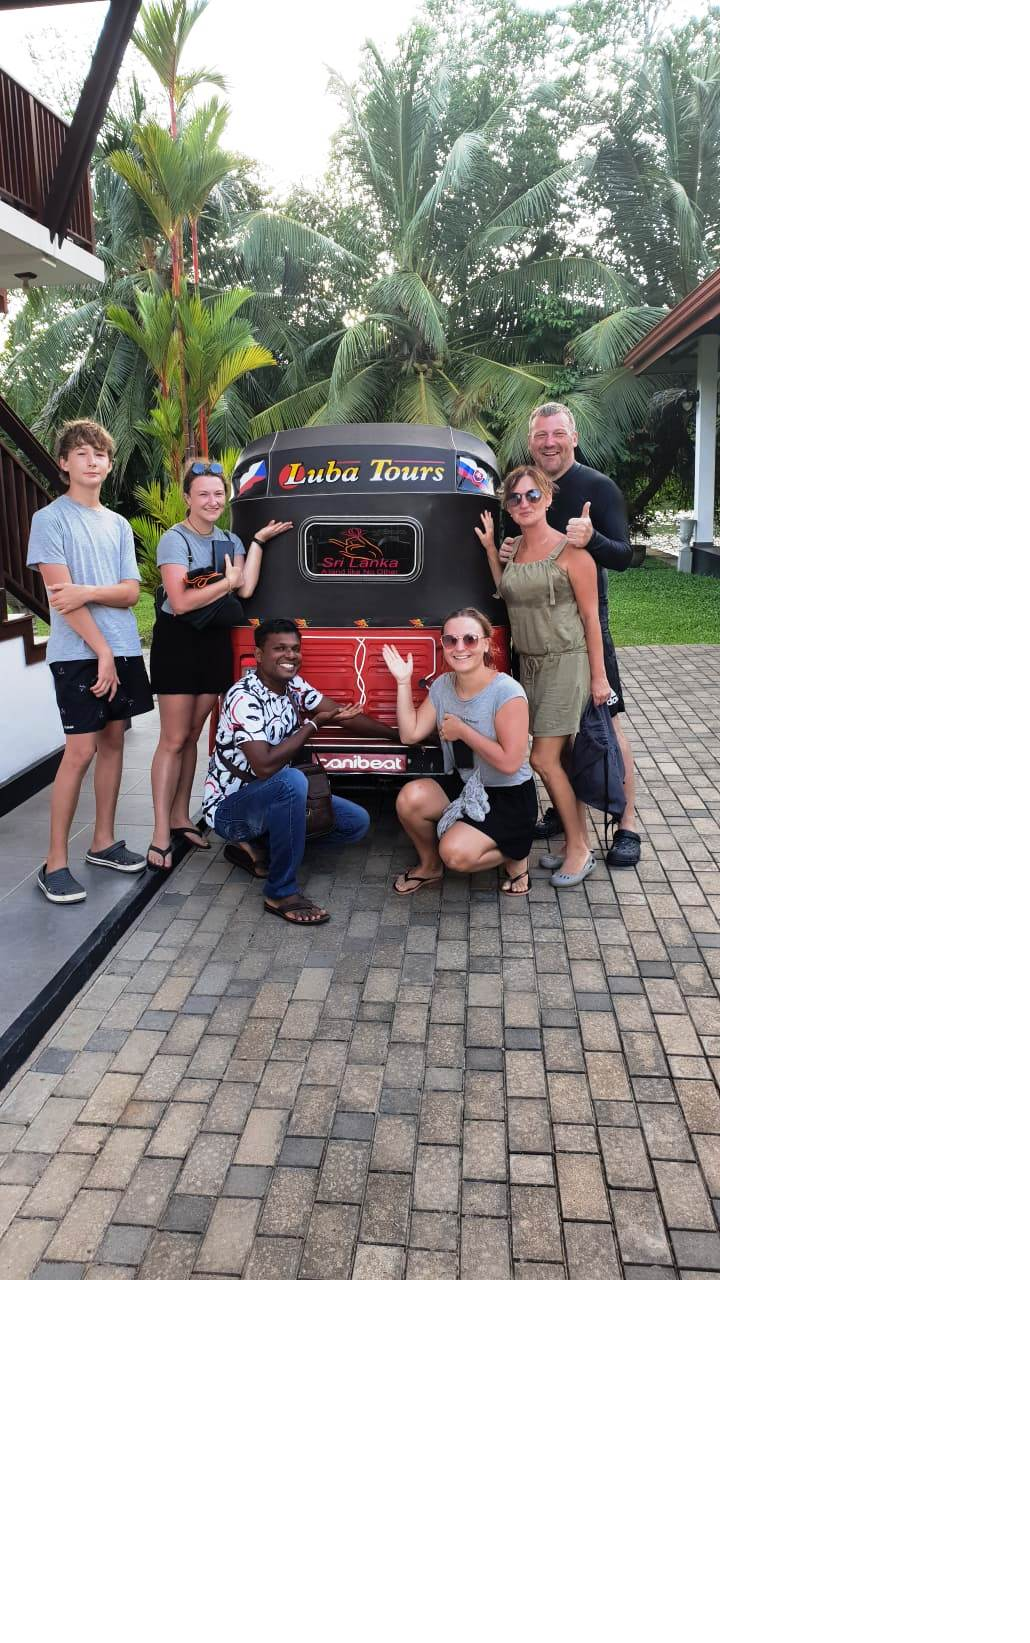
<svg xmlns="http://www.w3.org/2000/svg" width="1030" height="1643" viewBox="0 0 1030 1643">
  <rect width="100%" height="100%" fill="#fff"/>
  <image x="0" y="0" width="720" height="1280" href="img/1.png"/>
</svg>
